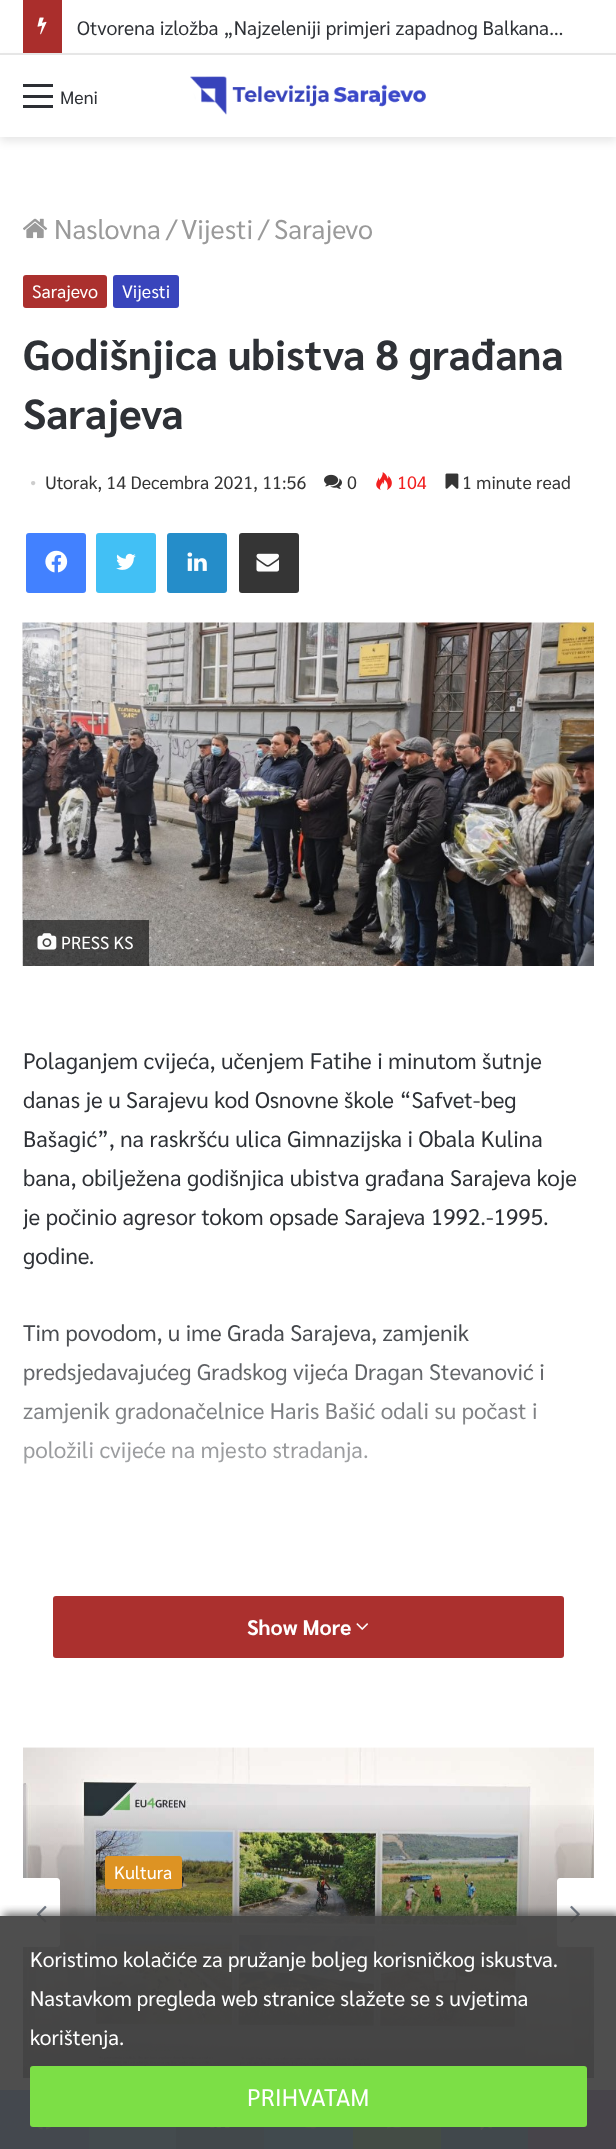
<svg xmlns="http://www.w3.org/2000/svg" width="616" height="2149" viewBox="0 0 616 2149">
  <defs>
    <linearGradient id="g1" gradientUnits="userSpaceOnUse" x1="308" y1="1797" x2="308" y2="2078"><stop offset="0" stop-color="#030303" stop-opacity="0"/><stop offset="1" stop-color="#030303" stop-opacity="0.75"/></linearGradient>
    <clipPath id="clip1"><path d="M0 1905h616v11H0z"/></clipPath>
    <clipPath id="clip2"><path d="M23 996h571v600H23z"/></clipPath>
    <linearGradient id="g2" gradientUnits="userSpaceOnUse" x1="308" y1="996" x2="308" y2="1596"><stop offset="0.5" stop-color="#fff" stop-opacity="0"/><stop offset="1" stop-color="#fff"/></linearGradient>
  </defs>
  <rect width="100%" height="100%" fill="#fff"/>
  <path d="M0 59h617v82H0z" fill="#0000001a" filter="blur(5px)"/>
  <path d="M0 53h616v2H0z" fill="#e6e6e6"/>
  <path d="M23 0h39v53H23z" fill="#aa2e2c"/>
  <image x="37" y="17" width="10" height="18" href="img/1.png"/>
  <path d="M0 55h616v82H0z" fill="#fff"/>
  <path d="M23 95h30v3H23z" fill="#2c2f34"/>
  <path d="M23 84h30v3H23z" fill="#2c2f34"/>
  <path d="M23 105h30v3H23z" fill="#2c2f34"/>
  <image x="190" y="76" width="236" height="39" href="img/2.png"/>
  <image x="23" y="218" width="25" height="21" href="img/3.png"/>
  <rect x="23" y="275" width="84" height="33" rx="3" fill="#ab302e"/>
  <rect x="113" y="275" width="66" height="33" rx="3" fill="#3945bc"/>
  <image x="324" y="474" width="18" height="15" href="img/4.png"/>
  <image x="376" y="472" width="16" height="18" href="img/5.png"/>
  <image x="445" y="473" width="14" height="16" href="img/6.png"/>
  <rect x="26" y="533" width="60" height="60" rx="3" fill="#4281ff"/>
  <image x="45" y="550" width="23" height="23" href="img/7.png"/>
  <rect x="96" y="533" width="60" height="60" rx="3" fill="#42c0f5"/>
  <image x="116" y="553" width="20" height="17" href="img/8.png"/>
  <rect x="167" y="533" width="60" height="60" rx="3" fill="#258dc9"/>
  <image x="187" y="552" width="20" height="19" href="img/9.png"/>
  <rect x="239" y="533" width="60" height="60" rx="3" fill="#353535"/>
  <image x="256" y="553" width="23" height="19" href="img/10.png"/>
  <image x="22" y="622" width="572" height="344" href="img/11.png"/>
  <path d="M23 920h126v46H23z" fill="#03030399"/>
  <image x="37" y="933" width="20" height="17" href="img/12.png"/>
  <rect x="53" y="1596" width="511" height="62" rx="3" fill="#ab302e"/>
  <image x="356" y="1623" width="13" height="7" href="img/13.png"/>
  <image x="23" y="1747" width="571" height="331" href="img/14.png"/>
  <path d="M23 1805h571v273H23z" fill="url(#g1)"/>
  <rect x="105" y="1856" width="77" height="33" rx="3" fill="#dd9323"/>
  <path d="M23 1878H57C58.5 1878 60 1879.5 60 1881V1944C60 1945.5 58.5 1947 57 1947H23Z" fill="#fff"/>
  <image x="36" y="1905" width="11" height="18" href="img/15.png"/>
  <path d="M560 1878H594V1947H560C558.5 1947 557 1945.5 557 1944V1881C557 1879.5 558.5 1878 560 1878Z" fill="#fff"/>
  <image x="570" y="1905" width="10" height="18" href="img/16.png"/>
  <path d="M0 2090h89v59H0z" fill="#4080ff"/>
  <image x="37" y="2127" width="15" height="3" href="img/17.png"/>
  <path d="M89 2127h87v22H89z" fill="#40bff5"/>
  <path d="M176 2127h88v22H176z" fill="#238cc8"/>
  <image x="210" y="2127" width="20" height="1" href="img/18.png"/>
  <path d="M264 2127h89v22H264z" fill="#00aff0"/>
  <image x="305" y="2127" width="12" height="2" href="img/19.png"/>
  <path d="M353 2127h88v22H353z" fill="#43d854"/>
  <image x="387" y="2127" width="14" height="2" href="img/20.png"/>
  <path d="M441 2127h87v22H441z" fill="#08c"/>
  <image x="480" y="2127" width="12" height="4" href="img/21.png"/>
  <path d="M528 2090h88v59H528z" fill="#773ead"/>
  <g clip-path="url(#clip1)">
    <path d="M3 1913h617v234H3z" fill="#444444bf" filter="blur(4px)"/>
  </g>
  <path d="M0 1916h616v233H0z" fill="#444444f2"/>
  <rect x="30" y="2066" width="557" height="61" rx="3" fill="#7cdf46"/>
  <text x="77" y="35" font-family="Sarabun" font-size="19.5" fill="#2e3136">Otvorena izložba „Najzeleniji primjeri zapadnog Balkana…</text>
  <text x="60" y="104" font-family="Sarabun" font-size="18" fill="#2e3136">Meni</text>
  <g font-family="Sarabun" font-size="27" fill="#9a9a9a">
    <text x="54" y="239">Naslovna</text>
    <text x="166" y="239">/</text>
    <text x="181" y="239">Vijesti</text>
    <text x="258" y="239">/</text>
    <text x="274" y="239">Sarajevo</text>
  </g>
  <g font-family="Sarabun" font-size="18" fill="#fff">
    <text x="32" y="298">Sarajevo</text>
    <text x="122" y="298">Vijesti</text>
  </g>
  <g font-family="Sarabun" font-size="42" font-weight="bold" fill="#2e3136">
    <text x="23" y="370">Godišnjica ubistva 8 građana</text>
    <text x="23" y="429">Sarajeva</text>
  </g>
  <text x="30" y="489" font-family="Liberation Serif" font-size="18" fill="#cdcdcd">•</text>
  <g font-family="Sarabun" font-size="18" fill="#353535">
    <text x="45" y="489">Utorak, 14 Decembra 2021, 11:56</text>
    <text x="347" y="489">0</text>
  </g>
  <text x="397" y="489" font-family="Sarabun" font-size="18" fill="#f12020">104</text>
  <text x="462" y="489" font-family="Sarabun" font-size="18" fill="#353535">1 minute read</text>
  <text x="61" y="949" font-family="Sarabun" font-size="17.5" fill="#fff">PRESS KS</text>
  <g font-family="Sarabun" font-size="22.5" fill="#2e3136">
    <text x="23" y="1069">Polaganjem cvijeća, učenjem Fatihe i minutom šutnje</text>
    <text x="23" y="1108">danas je u Sarajevu kod Osnovne škole “Safvet-beg</text>
    <text x="23" y="1147">Bašagić”, na raskršću ulica Gimnazijska i Obala Kulina</text>
    <text x="23" y="1186">bana, obilježena godišnjica ubistva građana Sarajeva koje</text>
  </g>
  <g clip-path="url(#clip2)">
    <text x="23" y="1225" font-family="Sarabun" font-size="22.5" fill="#2e3136">je počinio agresor tokom opsade Sarajeva 1992.-1995.</text>
  </g>
  <g font-family="Sarabun" font-size="22.5" fill="#2e3136">
    <text x="23" y="1264">godine.</text>
    <text x="23" y="1341">Tim povodom, u ime Grada Sarajeva, zamjenik</text>
    <text x="23" y="1380">predsjedavajućeg Gradskog vijeća Dragan Stevanović i</text>
    <text x="23" y="1419">zamjenik gradonačelnice Haris Bašić odali su počast i</text>
    <text x="23" y="1458">položili cvijeće na mjesto stradanja.</text>
  </g>
  <path d="M23 1324h520v140H23z" fill="url(#g2)"/>
  <text x="247" y="1635" font-family="Sarabun" font-size="21" font-weight="bold" fill="#fff">Show More</text>
  <text x="114" y="1879" font-family="Sarabun" font-size="18" fill="#fff">Kultura</text>
  <g font-family="Sarabun" font-size="21" fill="#fff">
    <text x="30" y="1967">Koristimo kolačiće za pružanje boljeg korisničkog iskustva.</text>
    <text x="30" y="2006">Nastavkom pregleda web stranice slažete se s uvjetima</text>
    <text x="30" y="2045">korištenja.</text>
  </g>
  <text x="247" y="2106" font-family="Sarabun" font-size="24" fill="#fff">PRIHVATAM</text>
</svg>
